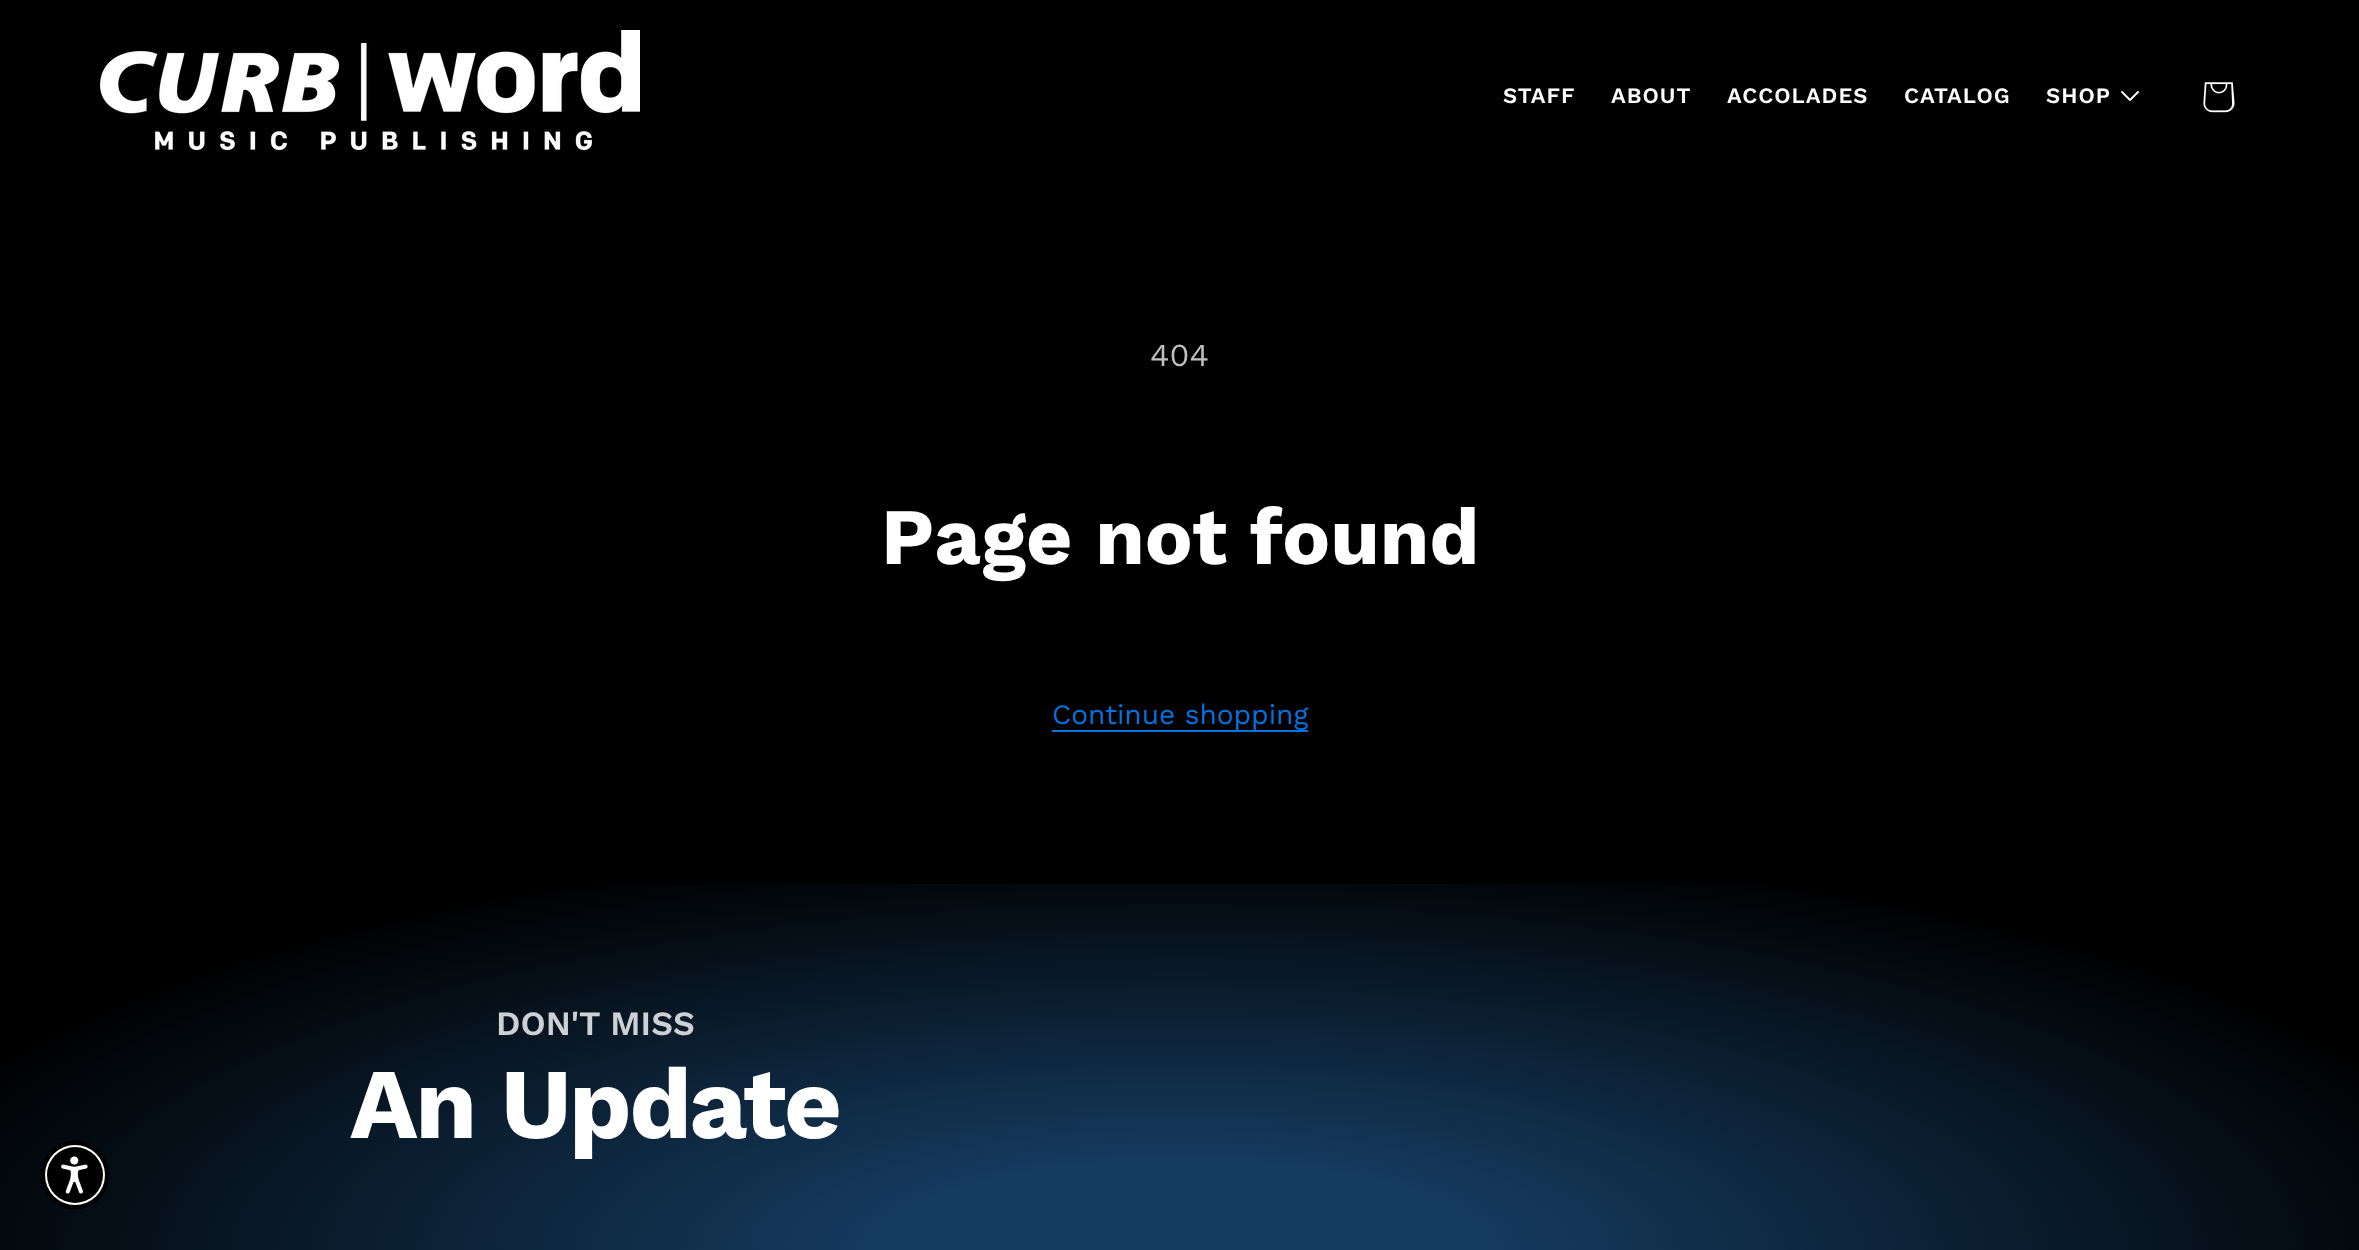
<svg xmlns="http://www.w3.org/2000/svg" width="2359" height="1250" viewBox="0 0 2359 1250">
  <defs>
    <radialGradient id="g1" gradientUnits="userSpaceOnUse" cx="0" cy="0" r="1" gradientTransform="matrix(1669 0 0 526 1180 1256)"><stop offset="0.18" stop-color="#153b5f"/><stop offset="0.8" stop-color="#000"/></radialGradient>
  </defs>
  <rect width="100%" height="100%" fill="#000"/>
  <image x="100" y="30" width="540" height="120" href="img/1.png"/>
  <image x="2121" y="91" width="18" height="10" href="img/2.png"/>
  <image x="2203" y="82" width="32" height="31" href="img/3.png"/>
  <path d="M1052 730h256v2H1052z" fill="#0073e2"/>
  <path d="M0 884h2359v366H0z" fill="url(#g1)"/>
  <circle cx="75" cy="1175" r="34.5" fill="#000"/>
  <circle cx="75" cy="1175" r="30" fill="#fff"/>
  <circle cx="75" cy="1175" r="28" fill="#000"/>
  <image x="61" y="1156" width="27" height="38" href="img/4.png"/>
  <g font-family="Work Sans" font-size="22" font-weight="600" letter-spacing="1" fill="#fff">
    <text x="1503" y="103">STAFF</text>
    <text x="1611" y="103">ABOUT</text>
    <text x="1727" y="103">ACCOLADES</text>
    <text x="1904" y="103">CATALOG</text>
    <text x="2046" y="103">SHOP</text>
  </g>
  <text x="1150" y="366" font-family="Work Sans" font-size="32" fill="#bfbfbf">404</text>
  <text x="881" y="564" font-family="Work Sans" font-size="80" font-weight="bold" fill="#fff">Page not found</text>
  <text x="1052" y="724" font-family="Work Sans" font-size="28" fill="#0073e2">Continue shopping</text>
  <text x="496" y="1035" font-family="Work Sans" font-size="34" font-weight="600" fill="#ced1d3">DON'T MISS</text>
  <text x="350" y="1138" font-family="Work Sans" font-size="100" font-weight="bold" letter-spacing="-2.5" fill="#fff">An Update</text>
</svg>
